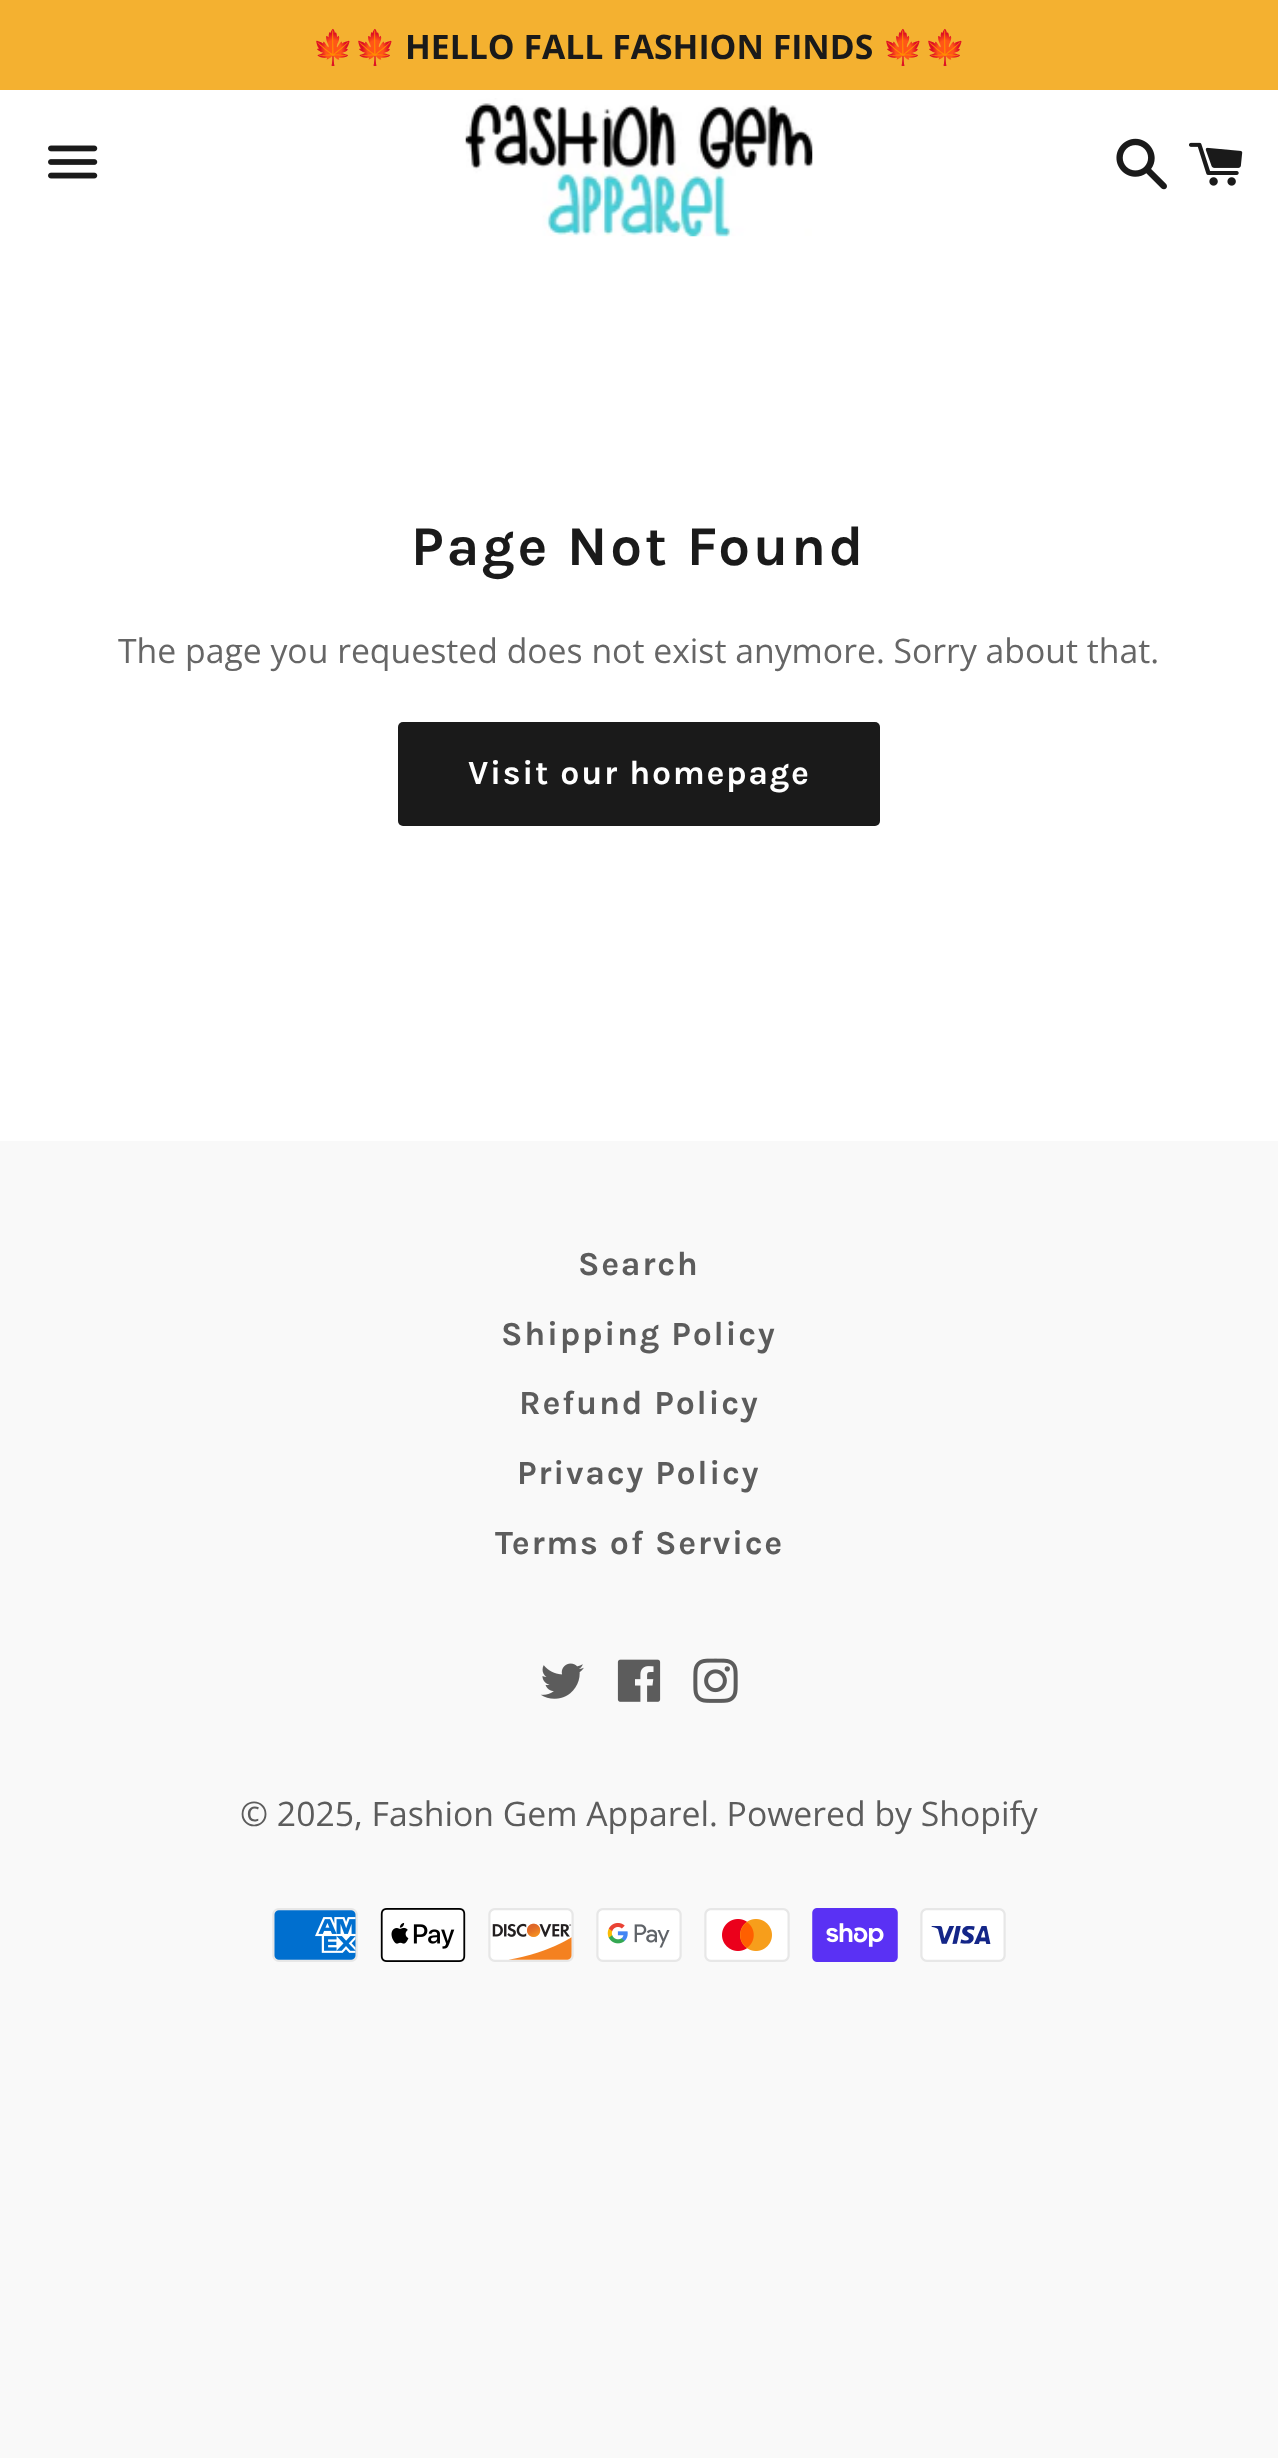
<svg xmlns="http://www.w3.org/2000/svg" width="1278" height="2458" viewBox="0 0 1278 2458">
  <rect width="100%" height="100%" fill="#f9f9f9"/>
  <path d="M0 90h1278v1051H0z" fill="#fff"/>
  <path d="M0 0h1278v90H0z" fill="#f4b130"/>
  <image x="48" y="145" width="50" height="34" href="img/1.png"/>
  <image x="465" y="98" width="348" height="139" href="img/2.png"/>
  <image x="1116" y="138" width="51" height="52" href="img/3.png"/>
  <image x="1189" y="142" width="54" height="44" href="img/4.png"/>
  <rect x="398" y="722" width="482" height="104" rx="5" fill="#1a1a1a"/>
  <image x="540" y="1663" width="44" height="36" href="img/5.png"/>
  <image x="617" y="1659" width="44" height="43" href="img/6.png"/>
  <image x="693" y="1658" width="45" height="45" href="img/7.png"/>
  <image x="272" y="1908" width="86" height="54" href="img/8.png"/>
  <image x="380" y="1908" width="86" height="54" href="img/9.png"/>
  <image x="488" y="1908" width="86" height="54" href="img/10.png"/>
  <image x="596" y="1908" width="86" height="54" href="img/11.png"/>
  <image x="704" y="1908" width="86" height="54" href="img/12.png"/>
  <image x="812" y="1908" width="86" height="54" href="img/13.png"/>
  <image x="920" y="1908" width="86" height="54" href="img/14.png"/>
  <text x="312" y="59" font-family="Noto Color Emoji" font-size="33.75" font-weight="bold" fill="#1a1a1a">🍁🍁</text>
  <text x="405" y="59" font-family="Open Sans" font-size="33.75" font-weight="bold" fill="#1a1a1a">HELLO FALL FASHION FINDS</text>
  <text x="882" y="59" font-family="Noto Color Emoji" font-size="33.75" font-weight="bold" fill="#1a1a1a">🍁🍁</text>
  <text x="411" y="565" font-family="Karla" font-size="56.25" font-weight="bold" letter-spacing="2.75" fill="#1a1a1a">Page Not Found</text>
  <text x="118" y="663" font-family="Open Sans" font-size="33.75" fill="#666">The page you requested does not exist anymore. Sorry about that.</text>
  <text x="468" y="784" font-family="Karla" font-size="33.75" font-weight="bold" letter-spacing="1.7" fill="#fff">Visit our homepage</text>
  <g font-family="Karla" font-size="33.75" font-weight="bold" letter-spacing="1.7" fill="#5c5c5c">
    <text x="578" y="1275">Search</text>
    <text x="501" y="1345">Shipping Policy</text>
    <text x="519" y="1414">Refund Policy</text>
    <text x="517" y="1484">Privacy Policy</text>
    <text x="495" y="1554">Terms of Service</text>
  </g>
  <text x="240" y="1826" font-family="Open Sans" font-size="33.75" fill="#5c5c5c">© 2025, Fashion Gem Apparel. Powered by Shopify</text>
</svg>
